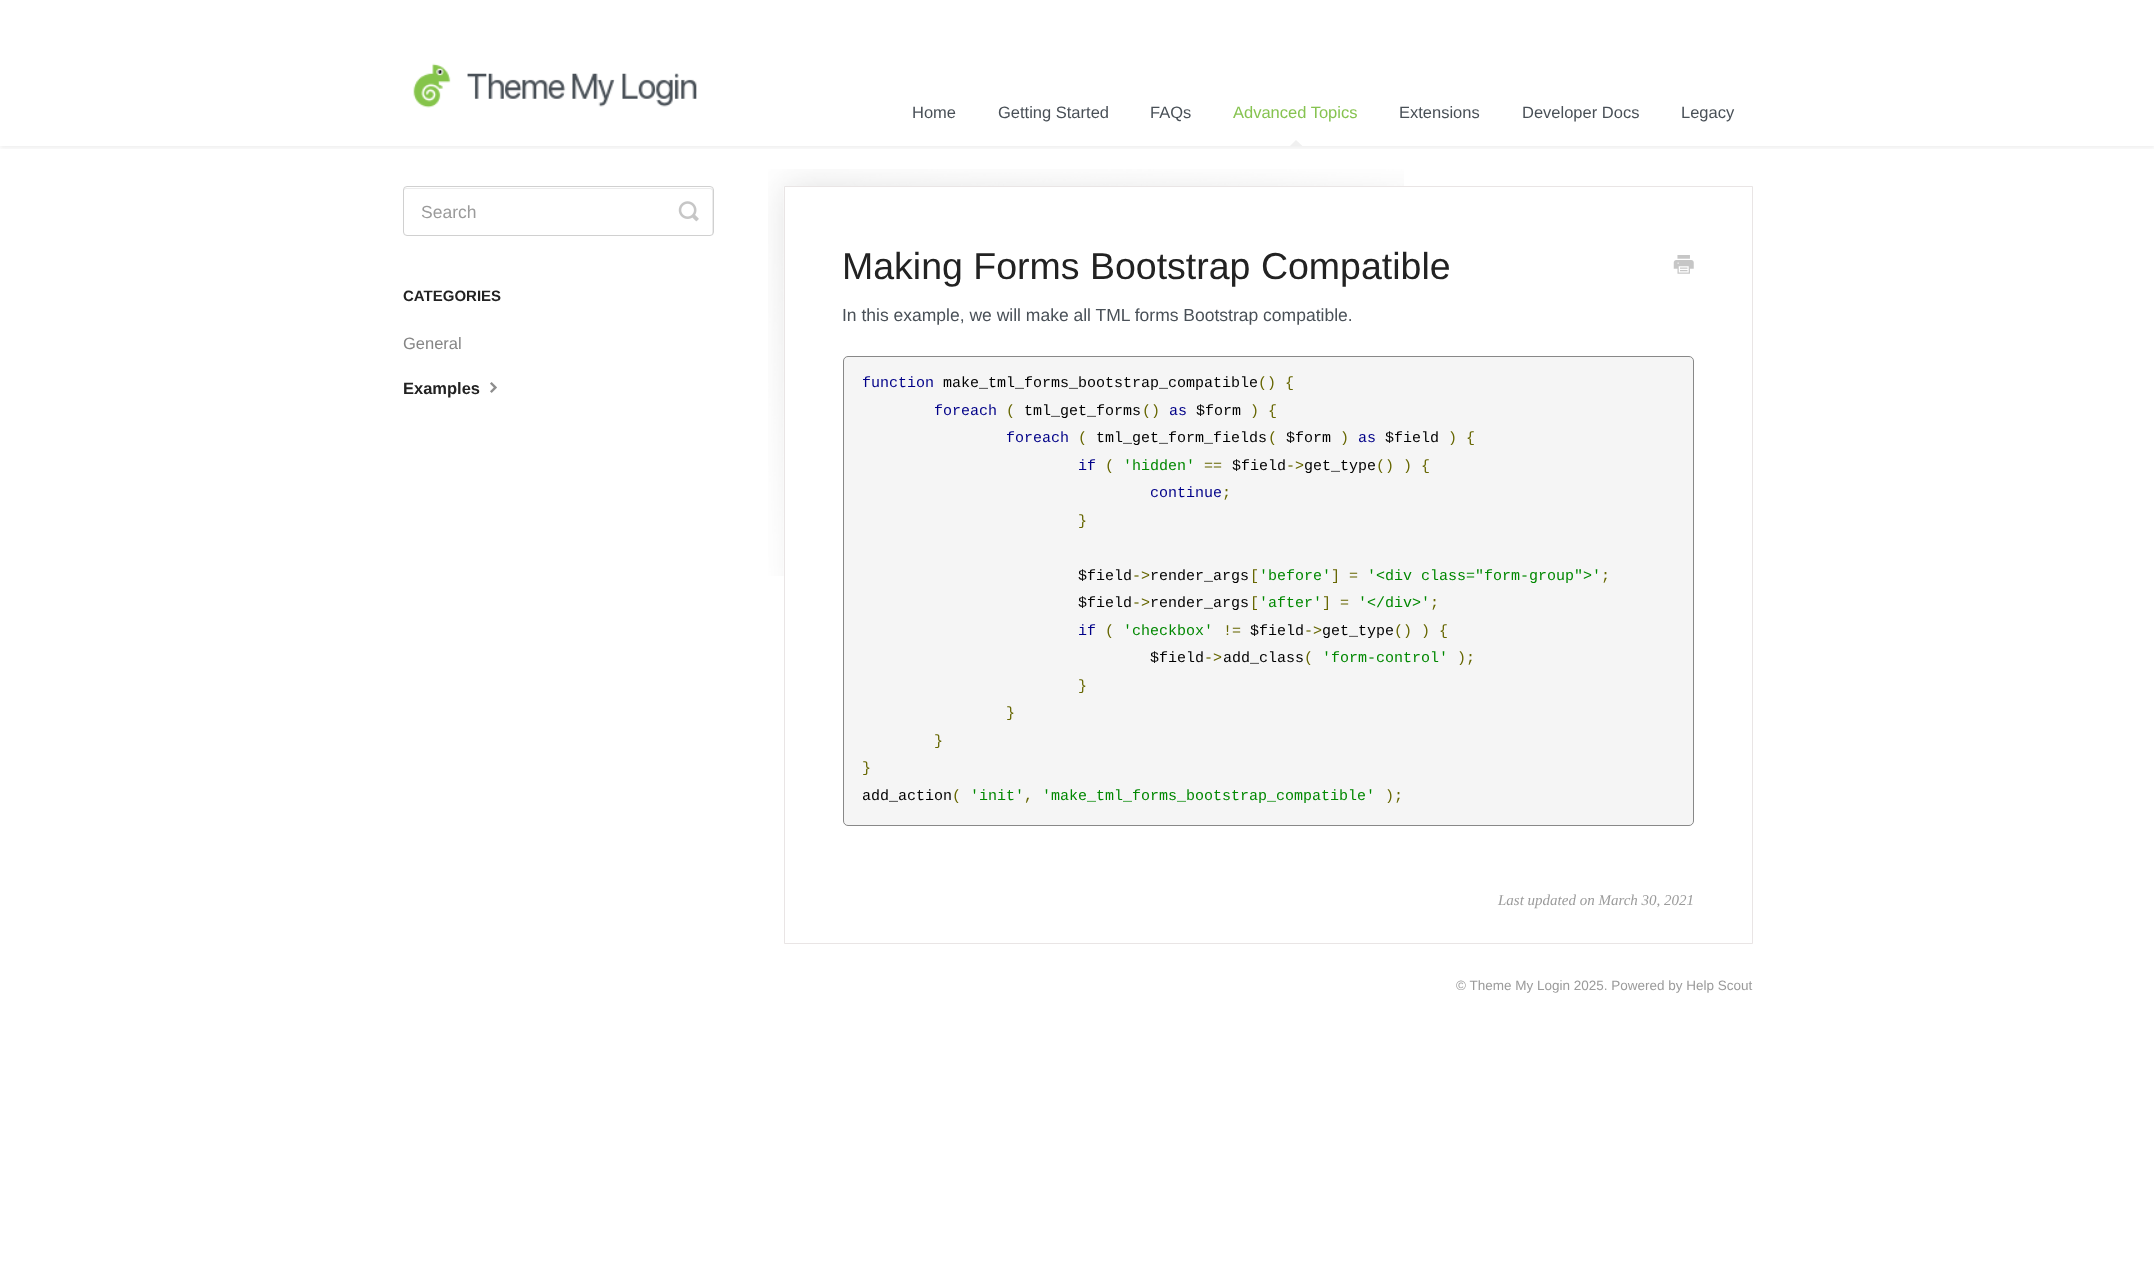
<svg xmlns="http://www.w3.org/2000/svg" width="2154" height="1281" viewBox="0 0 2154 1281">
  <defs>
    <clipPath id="clip1"><path d="M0 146h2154v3H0z"/></clipPath>
  </defs>
  <rect width="100%" height="100%" fill="#fff"/>
  <g clip-path="url(#clip1)">
    <path d="M0 1h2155v147H0z" fill="#00000012" filter="blur(2.5px)"/>
  </g>
  <image x="413" y="63" width="284" height="45" href="img/1.png"/>
  <path d="M1302.5 146H1290L1296 140Z" fill="#f0f0f0"/>
  <path d="M406 189H710C711 189 712 190 712 191V235C713 234 713 233 713 232V190C713 189 712 188 710 188H406C405 188 404 189 404 190V191C404 190 405 189 406 189Z" fill="#ececec"/>
  <rect x="403.5" y="186.5" width="310" height="49" rx="3.5" fill="none" stroke="#d0d0d0"/>
  <image x="678" y="201" width="21" height="21" href="img/2.png"/>
  <image x="490" y="382" width="7" height="11" href="img/3.png"/>
  <image x="768" y="169" width="636" height="407" href="img/4.png"/>
  <path d="M784.5 186.5h968v757H784.5z" fill="none" stroke="#e9e5e5"/>
  <image x="1673" y="255" width="21" height="19" href="img/5.png"/>
  <rect x="843.5" y="356.5" width="850" height="469" rx="4.5" fill="#f5f5f5" stroke="#888"/>
  <g font-family="Liberation Sans" font-size="16.5" fill="#495057">
    <text x="912" y="118">Home</text>
    <text x="998" y="118">Getting Started</text>
    <text x="1150" y="118">FAQs</text>
  </g>
  <text x="1233" y="118" font-family="Liberation Sans" font-size="16.5" fill="#86c350">Advanced Topics</text>
  <g font-family="Liberation Sans" font-size="16.5" fill="#495057">
    <text x="1399" y="118">Extensions</text>
    <text x="1522" y="118">Developer Docs</text>
    <text x="1681" y="118">Legacy</text>
  </g>
  <text x="421" y="218" font-family="Liberation Sans" font-size="17.5" fill="#9b9b9b">Search</text>
  <text x="403" y="301" font-family="Liberation Sans" font-size="15" font-weight="bold" fill="#222">CATEGORIES</text>
  <text x="403" y="349" font-family="Liberation Sans" font-size="16.5" fill="#858585">General</text>
  <text x="403" y="394" font-family="Liberation Sans" font-size="16.5" font-weight="bold" fill="#222">Examples</text>
  <text x="842" y="279" font-family="Liberation Sans" font-size="37.5" fill="#222">Making Forms Bootstrap Compatible</text>
  <text x="842" y="321" font-family="Liberation Sans" font-size="17.5" fill="#495057">In this example, we will make all TML forms Bootstrap compatible.</text>
  <text x="862" y="387" font-family="Liberation Mono" font-size="15" fill="#008">function</text>
  <text x="943" y="387" font-family="Liberation Mono" font-size="15" fill="#000">make_tml_forms_bootstrap_compatible</text>
  <text x="1258" y="387" font-family="Liberation Mono" font-size="15" fill="#660">() {</text>
  <text x="934" y="415" font-family="Liberation Mono" font-size="15" fill="#008">foreach</text>
  <text x="1006" y="415" font-family="Liberation Mono" font-size="15" fill="#660">(</text>
  <text x="1024" y="415" font-family="Liberation Mono" font-size="15" fill="#000">tml_get_forms</text>
  <text x="1142" y="415" font-family="Liberation Mono" font-size="15" fill="#660">()</text>
  <text x="1169" y="415" font-family="Liberation Mono" font-size="15" fill="#008">as</text>
  <text x="1196" y="415" font-family="Liberation Mono" font-size="15" fill="#000">$form</text>
  <text x="1250" y="415" font-family="Liberation Mono" font-size="15" fill="#660">) {</text>
  <text x="1006" y="442" font-family="Liberation Mono" font-size="15" fill="#008">foreach</text>
  <text x="1078" y="442" font-family="Liberation Mono" font-size="15" fill="#660">(</text>
  <text x="1096" y="442" font-family="Liberation Mono" font-size="15" fill="#000">tml_get_form_fields</text>
  <text x="1268" y="442" font-family="Liberation Mono" font-size="15" fill="#660">(</text>
  <text x="1286" y="442" font-family="Liberation Mono" font-size="15" fill="#000">$form</text>
  <text x="1340" y="442" font-family="Liberation Mono" font-size="15" fill="#660">)</text>
  <text x="1358" y="442" font-family="Liberation Mono" font-size="15" fill="#008">as</text>
  <text x="1385" y="442" font-family="Liberation Mono" font-size="15" fill="#000">$field</text>
  <text x="1448" y="442" font-family="Liberation Mono" font-size="15" fill="#660">) {</text>
  <text x="1078" y="470" font-family="Liberation Mono" font-size="15" fill="#008">if</text>
  <text x="1105" y="470" font-family="Liberation Mono" font-size="15" fill="#660">(</text>
  <text x="1123" y="470" font-family="Liberation Mono" font-size="15" fill="#080">'hidden'</text>
  <text x="1204" y="470" font-family="Liberation Mono" font-size="15" fill="#660">==</text>
  <text x="1232" y="470" font-family="Liberation Mono" font-size="15" fill="#000">$field</text>
  <text x="1286" y="470" font-family="Liberation Mono" font-size="15" fill="#660">-&gt;</text>
  <text x="1304" y="470" font-family="Liberation Mono" font-size="15" fill="#000">get_type</text>
  <text x="1376" y="470" font-family="Liberation Mono" font-size="15" fill="#660">() ) {</text>
  <text x="1150" y="497" font-family="Liberation Mono" font-size="15" fill="#008">continue</text>
  <g font-family="Liberation Mono" font-size="15" fill="#660">
    <text x="1222" y="497">;</text>
    <text x="1078" y="525">}</text>
  </g>
  <text x="1078" y="580" font-family="Liberation Mono" font-size="15" fill="#000">$field</text>
  <text x="1132" y="580" font-family="Liberation Mono" font-size="15" fill="#660">-&gt;</text>
  <text x="1150" y="580" font-family="Liberation Mono" font-size="15" fill="#000">render_args</text>
  <text x="1250" y="580" font-family="Liberation Mono" font-size="15" fill="#660">[</text>
  <text x="1259" y="580" font-family="Liberation Mono" font-size="15" fill="#080">'before'</text>
  <text x="1331" y="580" font-family="Liberation Mono" font-size="15" fill="#660">] =</text>
  <text x="1367" y="580" font-family="Liberation Mono" font-size="15" fill="#080">'&lt;div class="form-group"&gt;'</text>
  <text x="1601" y="580" font-family="Liberation Mono" font-size="15" fill="#660">;</text>
  <text x="1078" y="607" font-family="Liberation Mono" font-size="15" fill="#000">$field</text>
  <text x="1132" y="607" font-family="Liberation Mono" font-size="15" fill="#660">-&gt;</text>
  <text x="1150" y="607" font-family="Liberation Mono" font-size="15" fill="#000">render_args</text>
  <text x="1250" y="607" font-family="Liberation Mono" font-size="15" fill="#660">[</text>
  <text x="1259" y="607" font-family="Liberation Mono" font-size="15" fill="#080">'after'</text>
  <text x="1322" y="607" font-family="Liberation Mono" font-size="15" fill="#660">] =</text>
  <text x="1358" y="607" font-family="Liberation Mono" font-size="15" fill="#080">'&lt;/div&gt;'</text>
  <text x="1430" y="607" font-family="Liberation Mono" font-size="15" fill="#660">;</text>
  <text x="1078" y="635" font-family="Liberation Mono" font-size="15" fill="#008">if</text>
  <text x="1105" y="635" font-family="Liberation Mono" font-size="15" fill="#660">(</text>
  <text x="1123" y="635" font-family="Liberation Mono" font-size="15" fill="#080">'checkbox'</text>
  <text x="1223" y="635" font-family="Liberation Mono" font-size="15" fill="#660">!=</text>
  <text x="1250" y="635" font-family="Liberation Mono" font-size="15" fill="#000">$field</text>
  <text x="1304" y="635" font-family="Liberation Mono" font-size="15" fill="#660">-&gt;</text>
  <text x="1322" y="635" font-family="Liberation Mono" font-size="15" fill="#000">get_type</text>
  <text x="1394" y="635" font-family="Liberation Mono" font-size="15" fill="#660">() ) {</text>
  <text x="1150" y="662" font-family="Liberation Mono" font-size="15" fill="#000">$field</text>
  <text x="1204" y="662" font-family="Liberation Mono" font-size="15" fill="#660">-&gt;</text>
  <text x="1223" y="662" font-family="Liberation Mono" font-size="15" fill="#000">add_class</text>
  <text x="1304" y="662" font-family="Liberation Mono" font-size="15" fill="#660">(</text>
  <text x="1322" y="662" font-family="Liberation Mono" font-size="15" fill="#080">'form-control'</text>
  <g font-family="Liberation Mono" font-size="15" fill="#660">
    <text x="1457" y="662">);</text>
    <text x="1078" y="690">}</text>
    <text x="1006" y="717">}</text>
    <text x="934" y="745">}</text>
    <text x="862" y="772">}</text>
  </g>
  <text x="862" y="800" font-family="Liberation Mono" font-size="15" fill="#000">add_action</text>
  <text x="952" y="800" font-family="Liberation Mono" font-size="15" fill="#660">(</text>
  <text x="970" y="800" font-family="Liberation Mono" font-size="15" fill="#080">'init'</text>
  <text x="1024" y="800" font-family="Liberation Mono" font-size="15" fill="#660">,</text>
  <text x="1042" y="800" font-family="Liberation Mono" font-size="15" fill="#080">'make_tml_forms_bootstrap_compatible'</text>
  <text x="1385" y="800" font-family="Liberation Mono" font-size="15" fill="#660">);</text>
  <text x="1498" y="905" font-family="Liberation Serif" font-size="15" font-style="italic" fill="#9b9b9b">Last updated on March 30, 2021</text>
  <text x="1456" y="990" font-family="Liberation Sans" font-size="13.5" fill="#9b9b9b">© Theme My Login 2025. Powered by Help Scout</text>
</svg>
